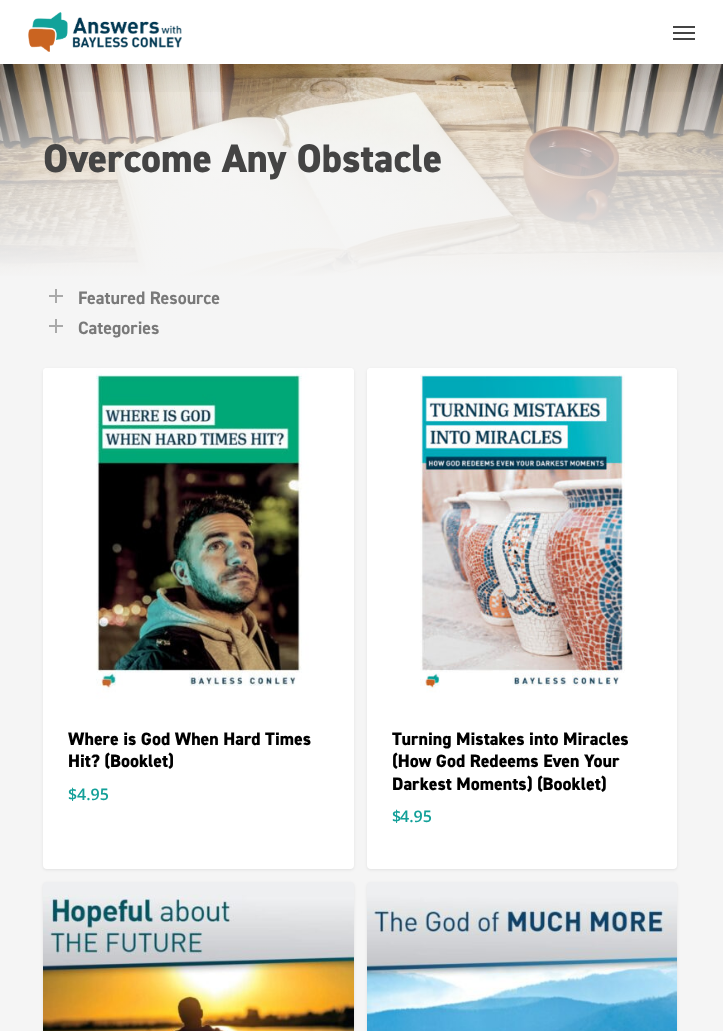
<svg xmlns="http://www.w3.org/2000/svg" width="723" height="1031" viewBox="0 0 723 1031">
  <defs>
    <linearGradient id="g1" gradientUnits="userSpaceOnUse" x1="362" y1="64" x2="362" y2="279"><stop offset="0" stop-color="#f5f5f5" stop-opacity="0.15"/><stop offset="0.4" stop-color="#f5f5f5" stop-opacity="0.7"/><stop offset="1" stop-color="#f5f5f5"/></linearGradient>
    <clipPath id="clip1"><path d="M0 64h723v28H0z"/></clipPath>
  </defs>
  <rect width="100%" height="100%" fill="#fff"/>
  <image x="0" y="64" width="723" height="212" href="img/2.png"/>
  <path d="M0 64h723v215H0z" fill="url(#g1)"/>
  <g clip-path="url(#clip1)">
    <path d="M0 3h723v64H0z" fill="#00000026" filter="blur(22.5px)"/>
  </g>
  <image x="28" y="12" width="154" height="40" href="img/1.png"/>
  <path d="M673 26h22v2H673z" fill="#444"/>
  <path d="M673 38h22v2H673z" fill="#444"/>
  <path d="M673 32h22v2H673z" fill="#444"/>
  <path d="M0 279h723v752H0z" fill="#f5f5f5"/>
  <path d="M55 289h2v14H55z" fill="#a9a9a9"/>
  <path d="M49 295h14v2H49z" fill="#a9a9a9"/>
  <path d="M55 319h2v14H55z" fill="#a9a9a9"/>
  <path d="M49 325h14v2H49z" fill="#a9a9a9"/>
  <rect x="43" y="369" width="311" height="501" rx="4" fill="#00000014" filter="blur(1.5px)"/>
  <rect x="43" y="368" width="311" height="501" rx="4" fill="#fff"/>
  <image x="43" y="368" width="311" height="331" href="img/3.png"/>
  <rect x="367" y="369" width="310" height="501" rx="4" fill="#00000014" filter="blur(1.5px)"/>
  <rect x="367" y="368" width="310" height="501" rx="4" fill="#fff"/>
  <image x="367" y="368" width="310" height="331" href="img/4.png"/>
  <rect x="43" y="883" width="311" height="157" rx="4" fill="#00000014" filter="blur(1.5px)"/>
  <image x="43" y="882" width="311" height="149" href="img/5.png"/>
  <rect x="367" y="883" width="310" height="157" rx="4" fill="#00000014" filter="blur(1.5px)"/>
  <image x="367" y="882" width="310" height="149" href="img/6.png"/>
  <text x="43" y="172" font-family="'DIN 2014'" font-size="40" font-weight="800" fill="#444">Overcome Any Obstacle</text>
  <g font-family="'DIN 2014'" font-size="18" font-weight="bold" fill="#797979">
    <text x="78" y="304">Featured Resource</text>
    <text x="78" y="334">Categories</text>
  </g>
  <g font-family="'DIN 2014'" font-size="18" font-weight="800" fill="#000">
    <text x="68" y="745">Where is God When Hard Times</text>
    <text x="68" y="767">Hit? (Booklet)</text>
  </g>
  <g font-family="Open Sans" font-size="16" font-weight="600" fill="#13a099">
    <text x="68" y="800">$</text>
    <text x="77" y="800">4.95</text>
  </g>
  <g font-family="'DIN 2014'" font-size="18" font-weight="800" fill="#000">
    <text x="392" y="745">Turning Mistakes into Miracles</text>
    <text x="392" y="767">(How God Redeems Even Your</text>
    <text x="392" y="790">Darkest Moments) (Booklet)</text>
  </g>
  <g font-family="Open Sans" font-size="16" font-weight="600" fill="#13a099">
    <text x="392" y="822">$</text>
    <text x="400" y="822">4.95</text>
  </g>
</svg>
